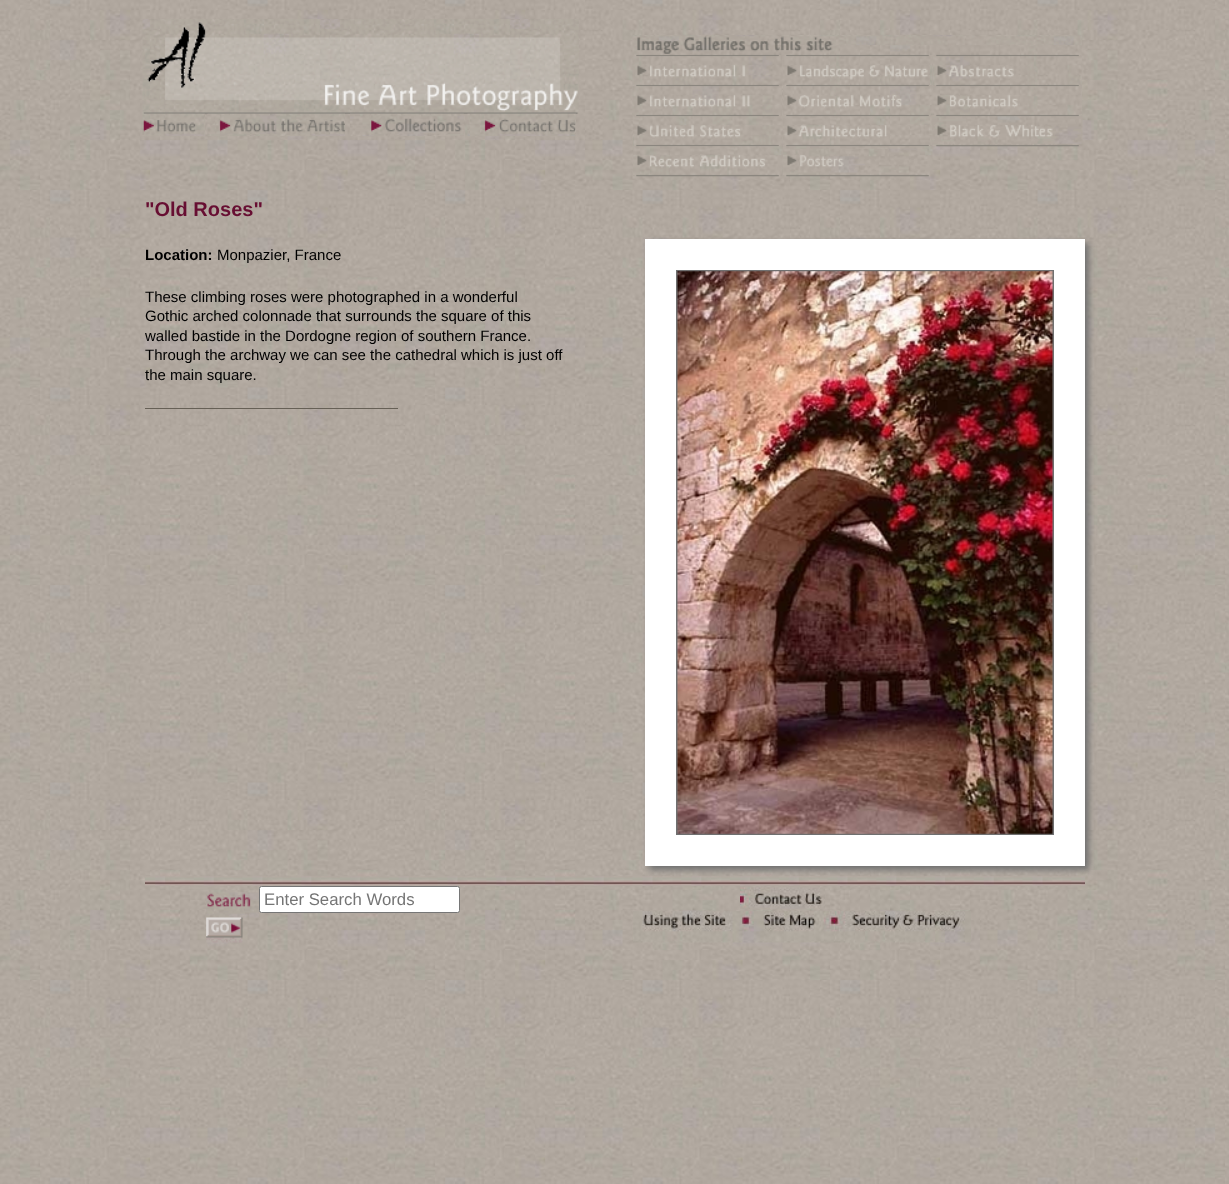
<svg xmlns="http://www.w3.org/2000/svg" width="1229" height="1184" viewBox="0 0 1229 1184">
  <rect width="100%" height="100%" fill="#fff"/>
  <image x="0" y="0" width="1229" height="1184" href="img/1.png"/>
  <image x="142" y="19" width="437" height="95" href="img/2.png"/>
  <image x="142" y="113" width="63" height="23" href="img/3.png"/>
  <image x="207" y="113" width="138" height="23" href="img/4.png"/>
  <image x="350" y="113" width="114" height="23" href="img/5.png"/>
  <image x="467" y="113" width="109" height="23" href="img/6.png"/>
  <image x="632" y="35" width="450" height="22" href="img/7.png"/>
  <image x="632" y="56" width="151" height="31" href="img/8.png"/>
  <image x="783" y="56" width="150" height="31" href="img/9.png"/>
  <image x="933" y="56" width="149" height="31" href="img/10.png"/>
  <image x="632" y="86" width="150" height="31" href="img/11.png"/>
  <image x="783" y="86" width="150" height="31" href="img/12.png"/>
  <image x="932" y="86" width="150" height="31" href="img/13.png"/>
  <image x="633" y="116" width="150" height="31" href="img/14.png"/>
  <image x="783" y="116" width="150" height="31" href="img/15.png"/>
  <image x="932" y="116" width="151" height="31" href="img/16.png"/>
  <image x="633" y="146" width="150" height="31" href="img/17.png"/>
  <image x="783" y="146" width="150" height="31" href="img/18.png"/>
  <path d="M145 408h253v1H145z" fill="#666056"/>
  <path d="M649 243h440v627H649z" fill="#707070" filter="blur(3px)"/>
  <path d="M660.5 254.5h409v596H660.5z" fill="none" stroke="#fff" stroke-width="31"/>
  <image x="677" y="271" width="376" height="563" href="img/19.png"/>
  <image x="145" y="876" width="940" height="10" href="img/20.png"/>
  <image x="206" y="892" width="53" height="26" href="img/21.png"/>
  <rect x="259.5" y="886.5" width="200" height="26" rx="2" fill="#fff" stroke="#767676"/>
  <image x="206" y="917" width="37" height="26" href="img/22.png"/>
  <image x="740" y="887" width="85" height="22" href="img/23.png"/>
  <image x="633" y="911" width="111" height="32" href="img/24.png"/>
  <image x="743" y="911" width="92" height="32" href="img/25.png"/>
  <image x="835" y="911" width="136" height="32" href="img/26.png"/>
  <text x="145" y="216" font-family="Liberation Sans" font-size="20" font-weight="bold" fill="#670e32">"Old Roses"</text>
  <text x="145" y="260" font-family="Liberation Sans" font-size="15" font-weight="bold" fill="#000">Location:</text>
  <g font-family="Liberation Sans" font-size="15" fill="#000">
    <text x="217" y="260">Monpazier, France</text>
    <text x="145" y="302">These climbing roses were photographed in a wonderful</text>
    <text x="145" y="321">Gothic arched colonnade that surrounds the square of this</text>
    <text x="145" y="341">walled bastide in the Dordogne region of southern France.</text>
    <text x="145" y="360">Through the archway we can see the cathedral which is just off</text>
    <text x="145" y="380">the main square.</text>
  </g>
  <text x="264" y="905" font-family="Liberation Sans" font-size="16.75" fill="#757575">Enter Search Words</text>
</svg>
